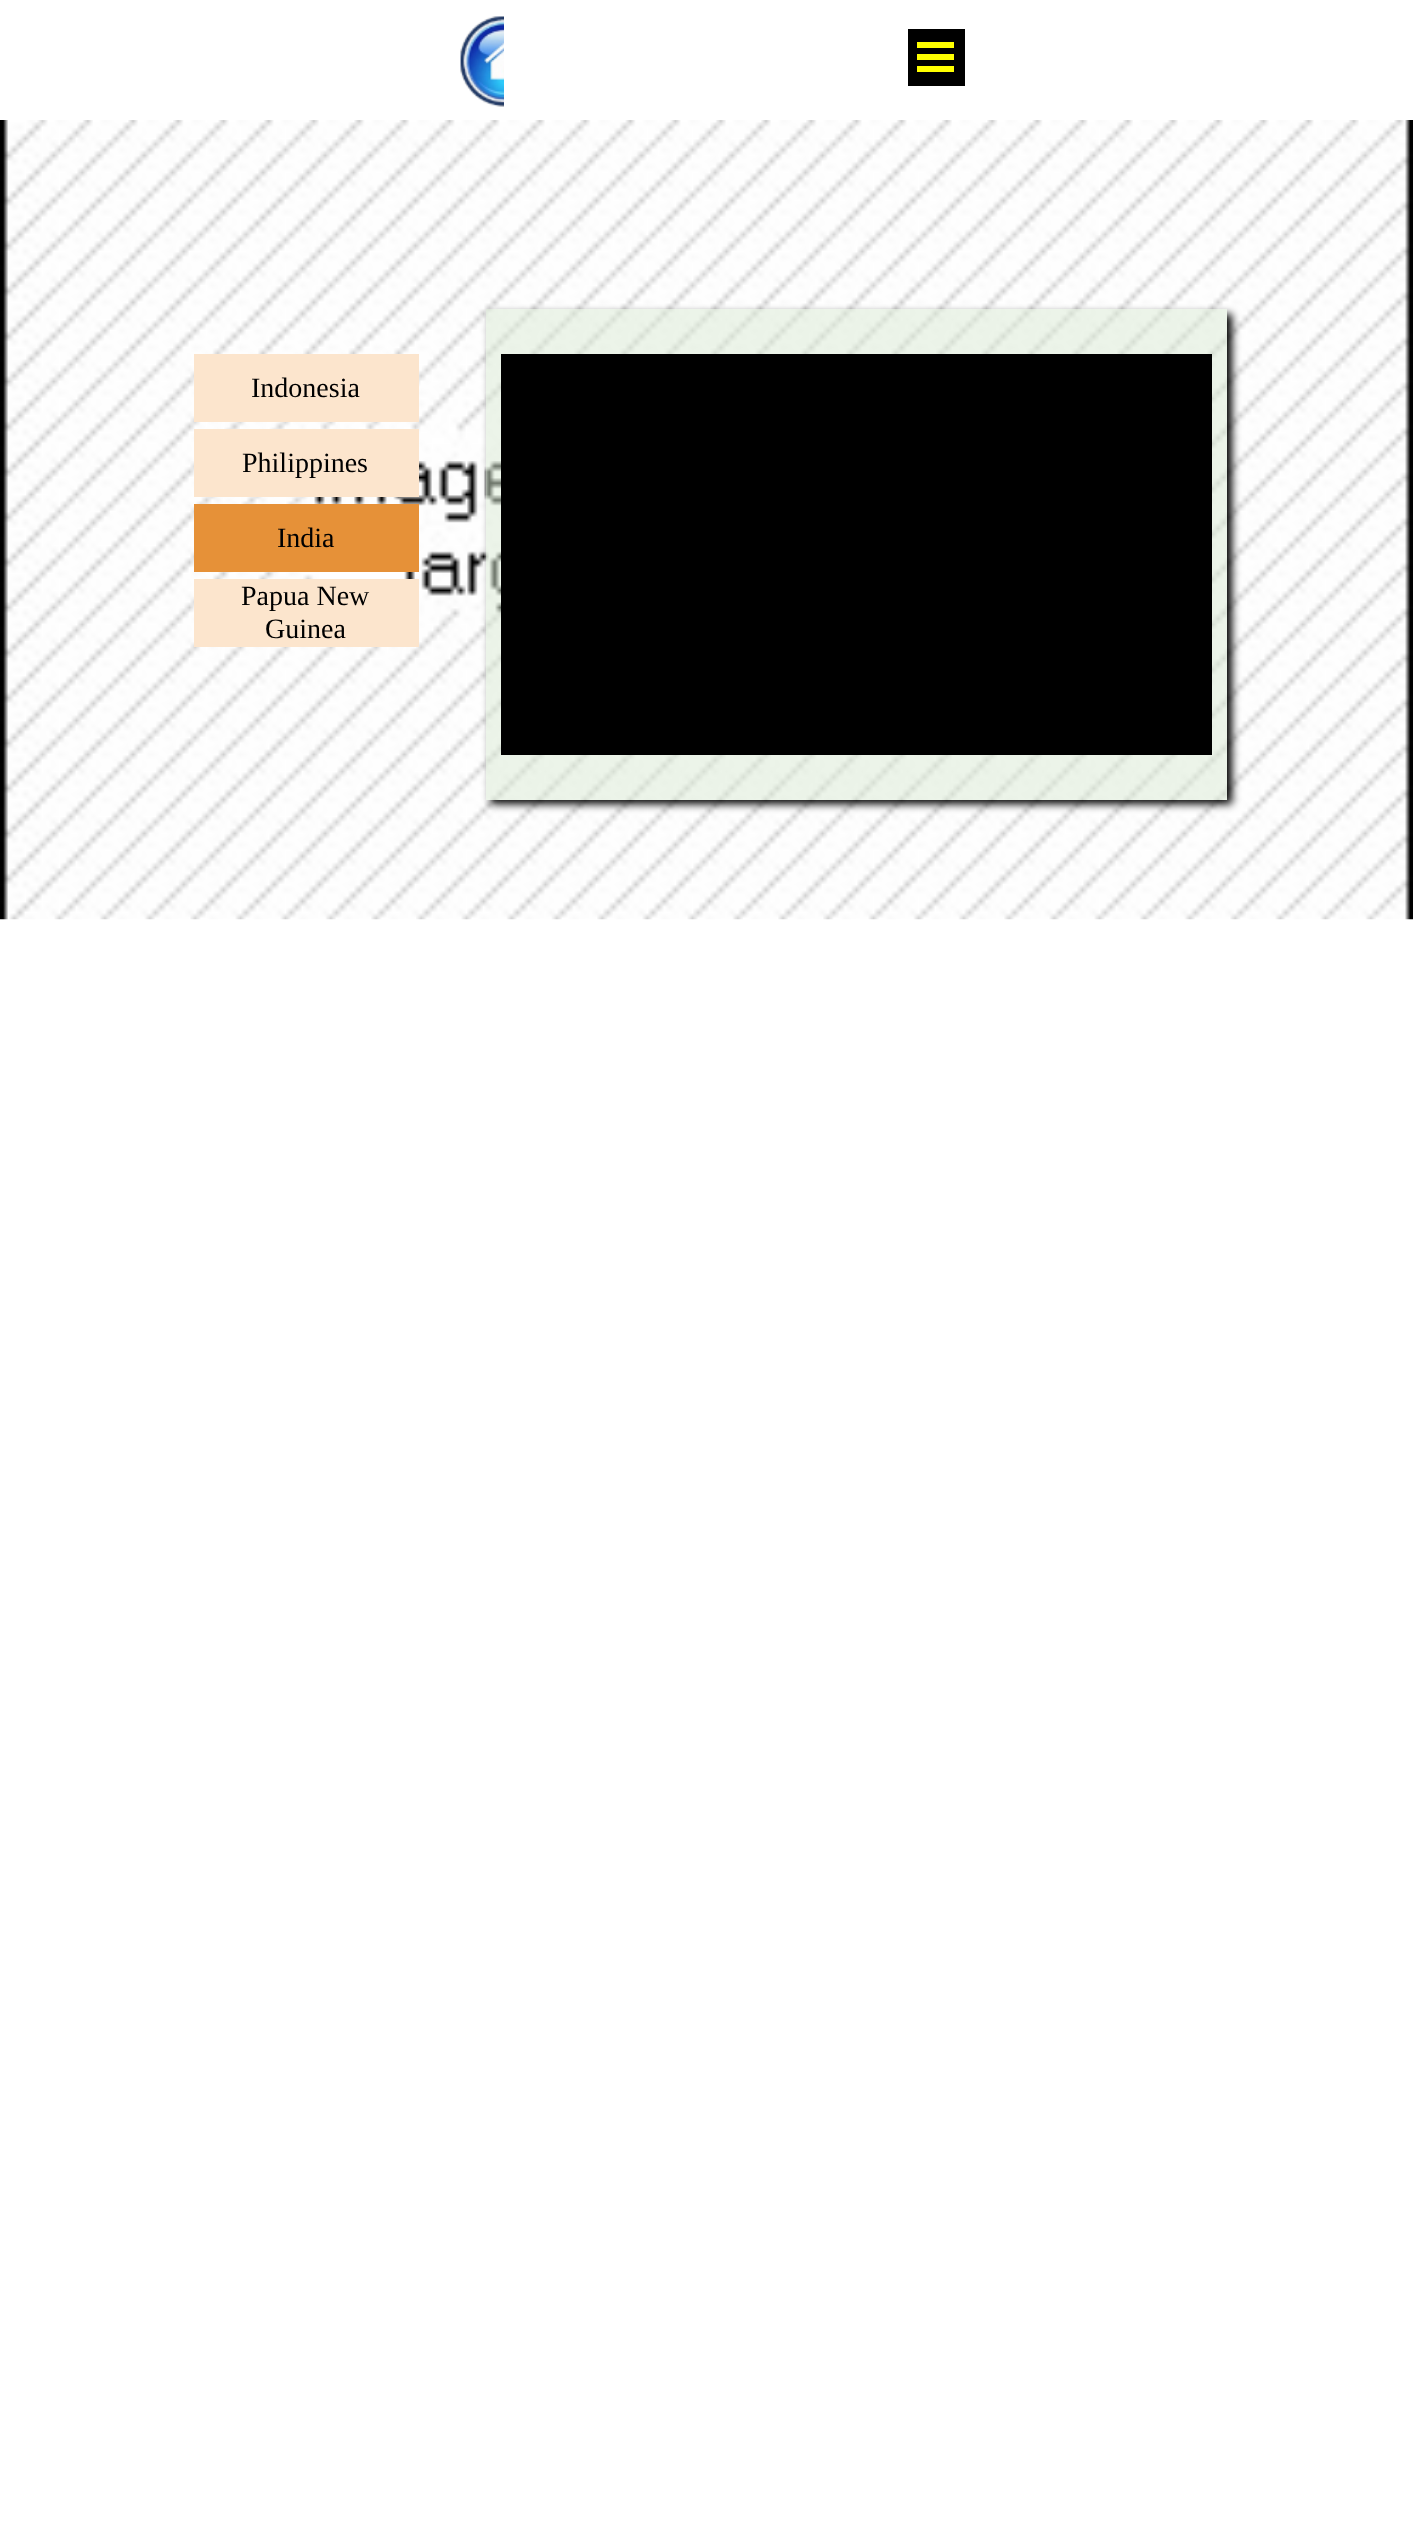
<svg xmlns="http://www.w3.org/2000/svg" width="1413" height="2538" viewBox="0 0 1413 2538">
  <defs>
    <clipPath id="clip1"><path d="M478 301H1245V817H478ZM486 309H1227V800H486Z" clip-rule="evenodd"/></clipPath>
  </defs>
  <rect width="100%" height="100%" fill="#fff"/>
  <image x="460" y="16" width="44" height="91" href="img/1.png"/>
  <path d="M908 29h57v57H908z" fill="#000"/>
  <path d="M917 42h37v6H917z" fill="#ff0"/>
  <path d="M917 54h37v6H917z" fill="#ff0"/>
  <path d="M917 66h37v6H917z" fill="#ff0"/>
  <image x="0" y="120" width="1413" height="800" href="img/2.png"/>
  <path d="M194 354h225v68H194z" fill="#fce5cd"/>
  <path d="M194 429h225v68H194z" fill="#fce5cd"/>
  <path d="M194 504h225v68H194z" fill="#e69138"/>
  <path d="M194 579h225v68H194z" fill="#fce5cd"/>
  <path d="M486 309h741v491H486z" fill="#d9ead380"/>
  <g clip-path="url(#clip1)">
    <path d="M491 314h741v490H491z" fill="#000" filter="blur(4px)"/>
  </g>
  <path d="M501 354h711v401H501z" fill="#000"/>
  <g font-family="Liberation Serif" font-size="28" fill="#000">
    <text x="251" y="397">Indonesia</text>
    <text x="242" y="472">Philippines</text>
    <text x="277" y="547">India</text>
    <text x="241" y="605">Papua New</text>
    <text x="265" y="638">Guinea</text>
  </g>
</svg>
